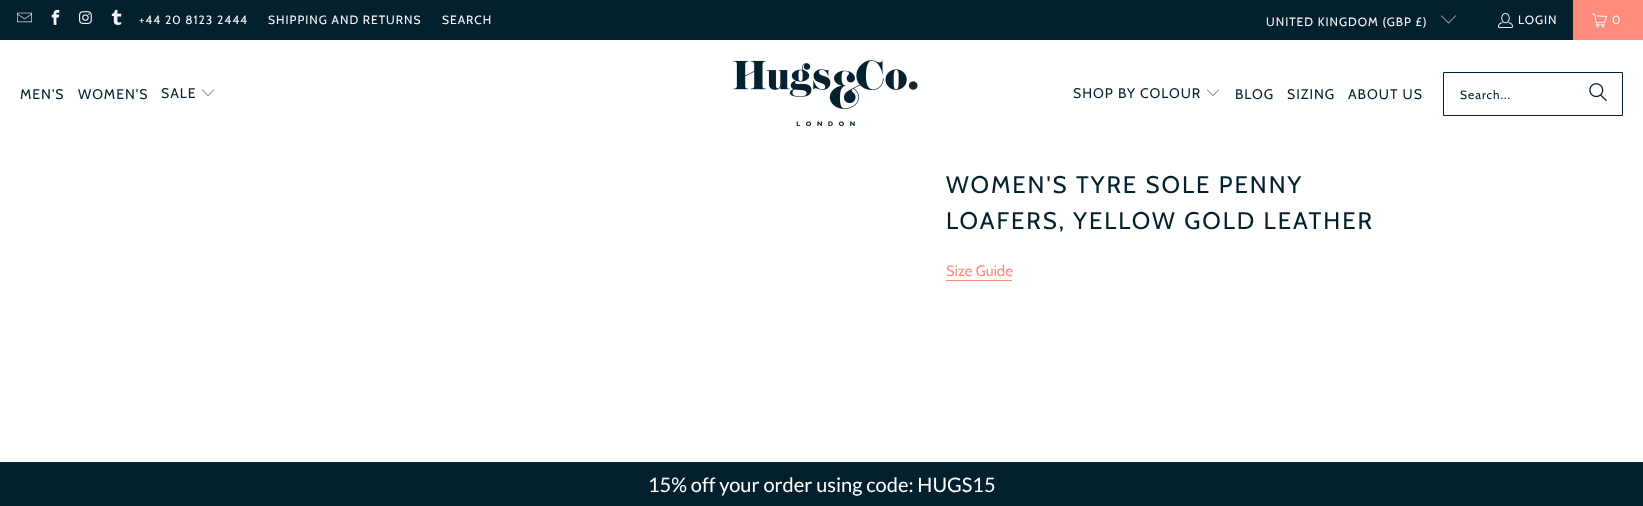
<svg xmlns="http://www.w3.org/2000/svg" width="1643" height="506" viewBox="0 0 1643 506">
  <rect width="100%" height="100%" fill="#fff"/>
  <path d="M0 0h1573v40H0z" fill="#03202f"/>
  <image x="17" y="12" width="15" height="11" href="img/1.png"/>
  <image x="51" y="9" width="9" height="16" href="img/2.png"/>
  <image x="79" y="11" width="13" height="13" href="img/3.png"/>
  <image x="111" y="9" width="11" height="16" href="img/4.png"/>
  <image x="1441" y="15" width="15" height="9" href="img/5.png"/>
  <image x="1498" y="12" width="15" height="16" href="img/6.png"/>
  <path d="M1573 0h70v40H1573z" fill="#ff8b7c"/>
  <image x="1592" y="13" width="15" height="15" href="img/7.png"/>
  <image x="202" y="89" width="12" height="7" href="img/8.png"/>
  <image x="733" y="60" width="185" height="67" href="img/9.png"/>
  <image x="1207" y="89" width="12" height="7" href="img/8.png"/>
  <path d="M1443.5 72.5h179v43H1443.5z" fill="none" stroke="#03202f"/>
  <image x="1589" y="83" width="18" height="19" href="img/10.png"/>
  <path d="M946 280h66v1H946z" fill="#ff8b7c"/>
  <path d="M0 462h1643v44H0z" fill="#03202f"/>
  <g font-family="Cabin" font-size="12" letter-spacing="1" fill="#f4f4f4">
    <text x="139" y="24">+44 20 8123 2444</text>
    <text x="268" y="24">SHIPPING AND RETURNS</text>
    <text x="442" y="24">SEARCH</text>
    <text x="1266" y="26">UNITED KINGDOM (GBP £)</text>
    <text x="1518" y="24">LOGIN</text>
    <text x="1612" y="24">0</text>
  </g>
  <g font-family="Cabin" font-size="14" letter-spacing="1" fill="#03202f">
    <text x="20" y="99">MEN'S</text>
    <text x="78" y="99">WOMEN'S</text>
    <text x="161" y="98">SALE</text>
    <text x="1073" y="98">SHOP BY COLOUR</text>
    <text x="1235" y="99">BLOG</text>
    <text x="1287" y="99">SIZING</text>
    <text x="1348" y="99">ABOUT US</text>
  </g>
  <text x="1460" y="99" font-family="Cabin" font-size="12" letter-spacing="1" fill="#03202f">Search...</text>
  <g font-family="Cabin" font-size="24" letter-spacing="2" fill="#03202f">
    <text x="946" y="193">WOMEN'S TYRE SOLE PENNY</text>
    <text x="946" y="229">LOAFERS, YELLOW GOLD LEATHER</text>
  </g>
  <text x="946" y="276" font-family="Cabin" font-size="15" fill="#ff8b7c">Size Guide</text>
  <text x="648" y="492" font-family="Lato" font-size="20" fill="#fff">15% off your order using code: HUGS15</text>
</svg>
